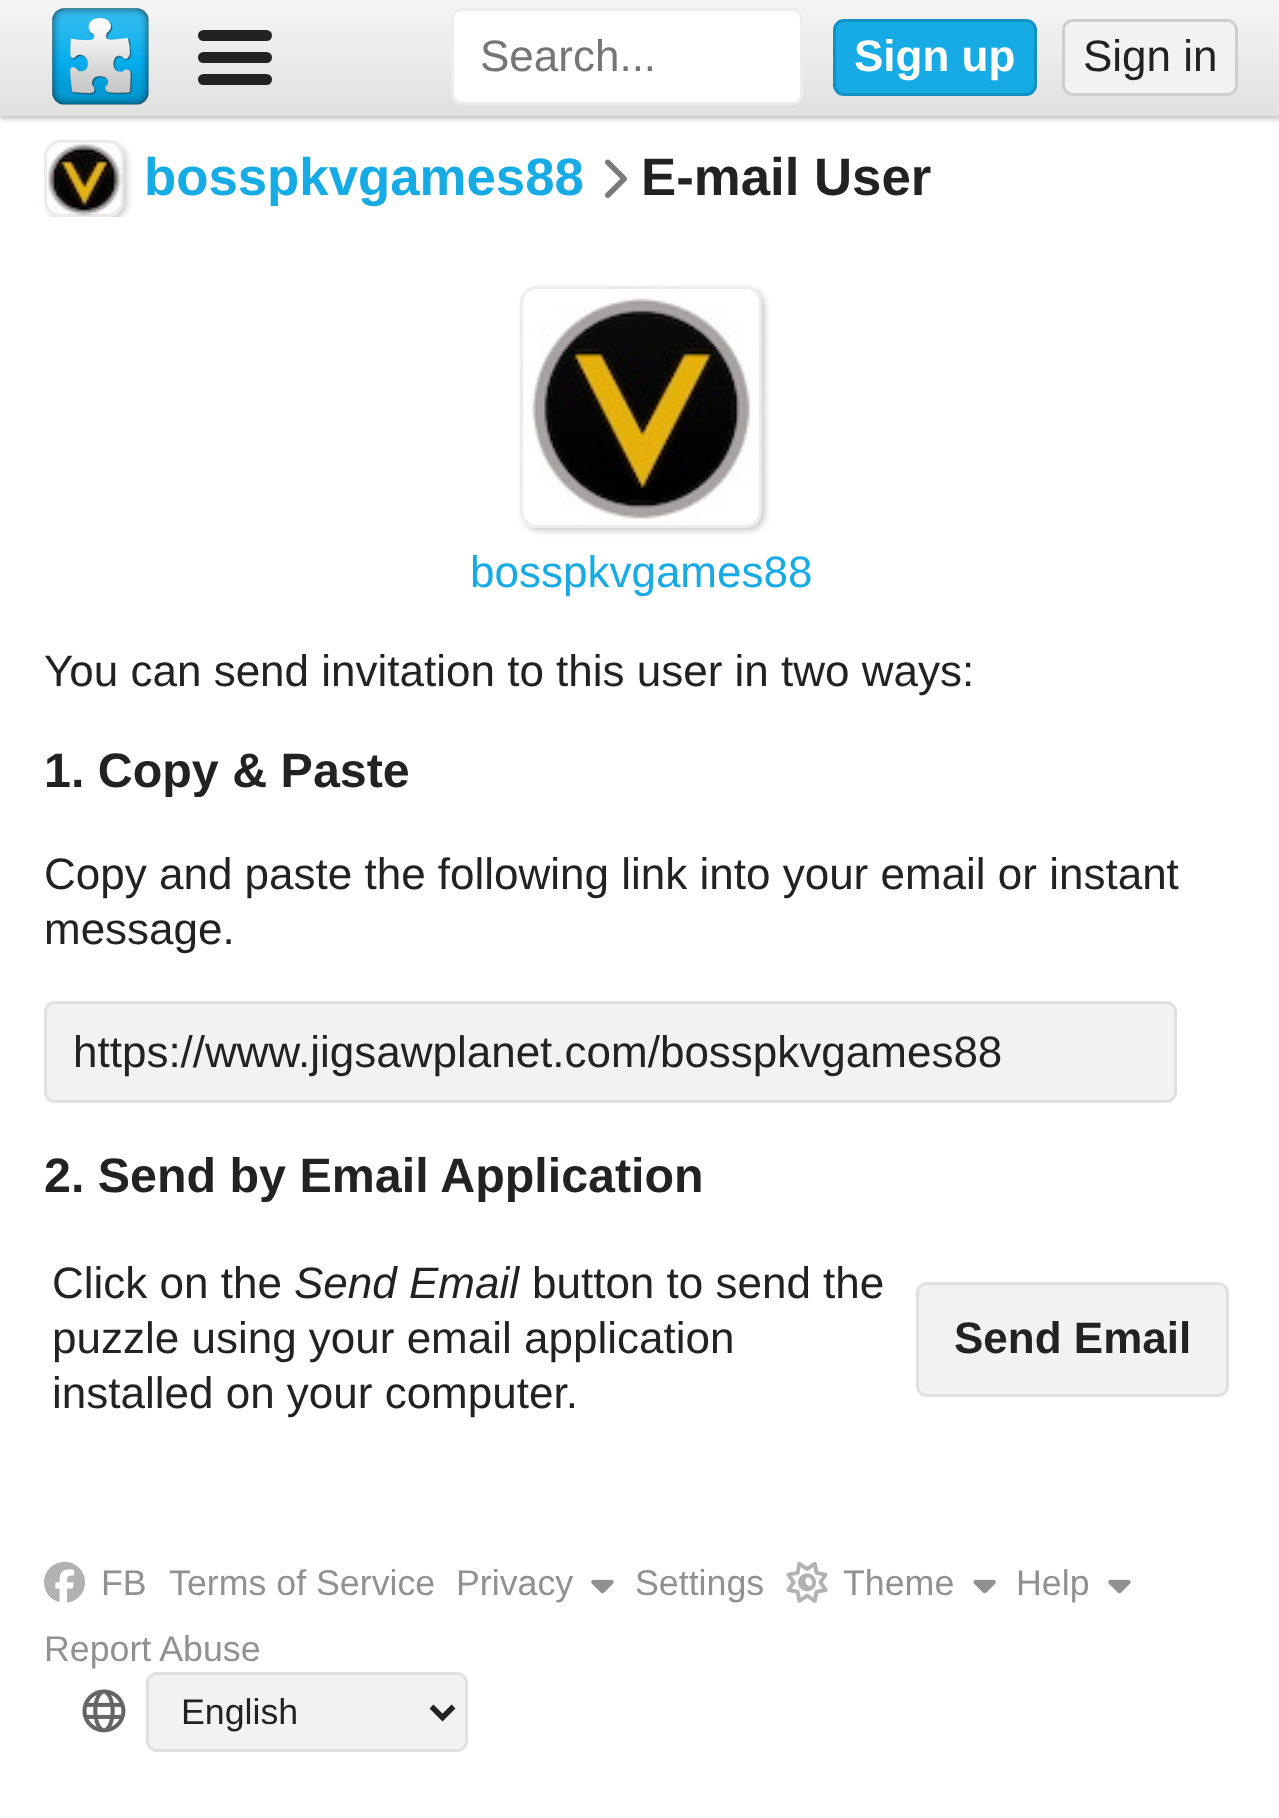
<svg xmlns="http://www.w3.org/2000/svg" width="1279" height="1818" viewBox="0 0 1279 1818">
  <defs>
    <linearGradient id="g1" gradientUnits="userSpaceOnUse" x1="641" y1="0" x2="641" y2="116"><stop offset="0" stop-color="#f5f5f5"/><stop offset="1" stop-color="#e0e0e0"/></linearGradient>
    <clipPath id="clip1"><path d="M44 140h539v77H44z"/></clipPath>
  </defs>
  <rect width="100%" height="100%" fill="#fff"/>
  <path d="M0 3h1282v115H0z" fill="#0000004d" filter="blur(3px)"/>
  <path d="M0 0h1279v116H0z" fill="url(#g1)"/>
  <image x="52" y="8" width="97" height="97" href="img/1.png"/>
  <rect x="198" y="30" width="74" height="11" rx="5.5" fill="#222"/>
  <rect x="198" y="52" width="74" height="11" rx="5.5" fill="#222"/>
  <rect x="198" y="74" width="74" height="11" rx="5.5" fill="#222"/>
  <rect x="451" y="8" width="352" height="97" rx="11" fill="#fff"/>
  <rect x="452.5" y="9.5" width="349" height="94" rx="9.5" fill="none" stroke="#00000012" stroke-width="3"/>
  <rect x="833" y="19" width="204" height="77" rx="11" fill="#17abe6"/>
  <rect x="834.5" y="20.5" width="201" height="74" rx="9.5" fill="none" stroke="#00000026" stroke-width="3"/>
  <rect x="1062" y="19" width="176" height="77" rx="11" fill="#f2f2f2"/>
  <rect x="1063.5" y="20.5" width="173" height="74" rx="9.5" fill="none" stroke="#00000026" stroke-width="3"/>
  <g clip-path="url(#clip1)">
    <rect x="47" y="143" width="80" height="77" rx="17" fill="#00000033" filter="blur(3px)"/>
  </g>
  <rect x="44" y="140" width="80" height="77" rx="17" fill="#f0f0f0"/>
  <image x="44" y="140" width="80" height="77" href="img/2.png"/>
  <rect x="45.5" y="141.5" width="77" height="74" rx="15.5" fill="none" stroke="#00000012" stroke-width="3"/>
  <image x="605" y="159" width="22" height="39" href="img/3.png"/>
  <rect x="523" y="289" width="242" height="242" rx="17" fill="#00000033" filter="blur(3px)"/>
  <rect x="520" y="286" width="242" height="242" rx="17" fill="#f0f0f0"/>
  <image x="520" y="286" width="242" height="242" href="img/4.png"/>
  <rect x="521.5" y="287.5" width="239" height="239" rx="15.5" fill="none" stroke="#00000012" stroke-width="3"/>
  <rect x="44" y="1001" width="1133" height="102" rx="11" fill="#f2f2f2"/>
  <rect x="45.5" y="1002.5" width="1130" height="99" rx="9.5" fill="none" stroke="#00000012" stroke-width="3"/>
  <rect x="916" y="1282" width="313" height="115" rx="11" fill="#f2f2f2"/>
  <rect x="917.5" y="1283.5" width="310" height="112" rx="9.5" fill="none" stroke="#00000012" stroke-width="3"/>
  <image x="44" y="1561" width="42" height="42" href="img/5.png"/>
  <image x="591" y="1579" width="23" height="15" href="img/6.png"/>
  <image x="786" y="1561" width="42" height="42" href="img/7.png"/>
  <image x="973" y="1579" width="23" height="15" href="img/8.png"/>
  <image x="1108" y="1579" width="23" height="15" href="img/6.png"/>
  <image x="82" y="1689" width="44" height="44" href="img/9.png"/>
  <rect x="146" y="1672" width="322" height="80" rx="11" fill="#f2f2f2"/>
  <rect x="147.5" y="1673.5" width="319" height="77" rx="9.5" fill="none" stroke="#00000012" stroke-width="3"/>
  <path d="M431.5 1706.5L442.5 1717.5L453.5 1706.5" fill="none" stroke="#222" stroke-width="5.5"/>
  <text x="480" y="71" font-family="Liberation Sans" font-size="44" fill="#757575">Search...</text>
  <text x="854" y="71" font-family="Liberation Sans" font-size="44" font-weight="bold" fill="#fff">Sign up</text>
  <text x="1083" y="71" font-family="Liberation Sans" font-size="44" fill="#222">Sign in</text>
  <text x="144" y="195" font-family="Liberation Sans" font-size="52.75" font-weight="bold" fill="#17abe6">bosspkvgames88</text>
  <text x="641" y="195" font-family="Liberation Sans" font-size="52.75" font-weight="bold" fill="#222">E-mail User</text>
  <text x="470" y="587" font-family="Liberation Sans" font-size="44" fill="#17abe6">bosspkvgames88</text>
  <text x="44" y="686" font-family="Liberation Sans" font-size="44" fill="#222">You can send invitation to this user in two ways:</text>
  <text x="44" y="787" font-family="Liberation Sans" font-size="48.4" font-weight="bold" fill="#222">1. Copy &amp; Paste</text>
  <g font-family="Liberation Sans" font-size="44" fill="#222">
    <text x="44" y="889">Copy and paste the following link into your email or instant</text>
    <text x="44" y="944">message.</text>
    <text x="73" y="1067">https://www.jigsawplanet.com/bosspkvgames88</text>
  </g>
  <text x="44" y="1192" font-family="Liberation Sans" font-size="48.4" font-weight="bold" fill="#222">2. Send by Email Application</text>
  <text x="52" y="1298" font-family="Liberation Sans" font-size="44" fill="#222">Click on the</text>
  <text x="294" y="1298" font-family="Liberation Sans" font-size="44" font-style="italic" fill="#222">Send Email</text>
  <g font-family="Liberation Sans" font-size="44" fill="#222">
    <text x="532" y="1298">button to send the</text>
    <text x="52" y="1353">puzzle using your email application</text>
    <text x="52" y="1408">installed on your computer.</text>
  </g>
  <text x="954" y="1353" font-family="Liberation Sans" font-size="44" font-weight="bold" fill="#222">Send Email</text>
  <g font-family="Liberation Sans" font-size="35.75" fill="#919191">
    <text x="101" y="1595">FB</text>
    <text x="169" y="1595">Terms of Service</text>
    <text x="456" y="1595">Privacy</text>
    <text x="635" y="1595">Settings</text>
    <text x="843" y="1595">Theme</text>
    <text x="1016" y="1595">Help</text>
    <text x="44" y="1661">Report Abuse</text>
  </g>
  <text x="181" y="1724" font-family="Liberation Sans" font-size="35.75" fill="#222">English</text>
</svg>
